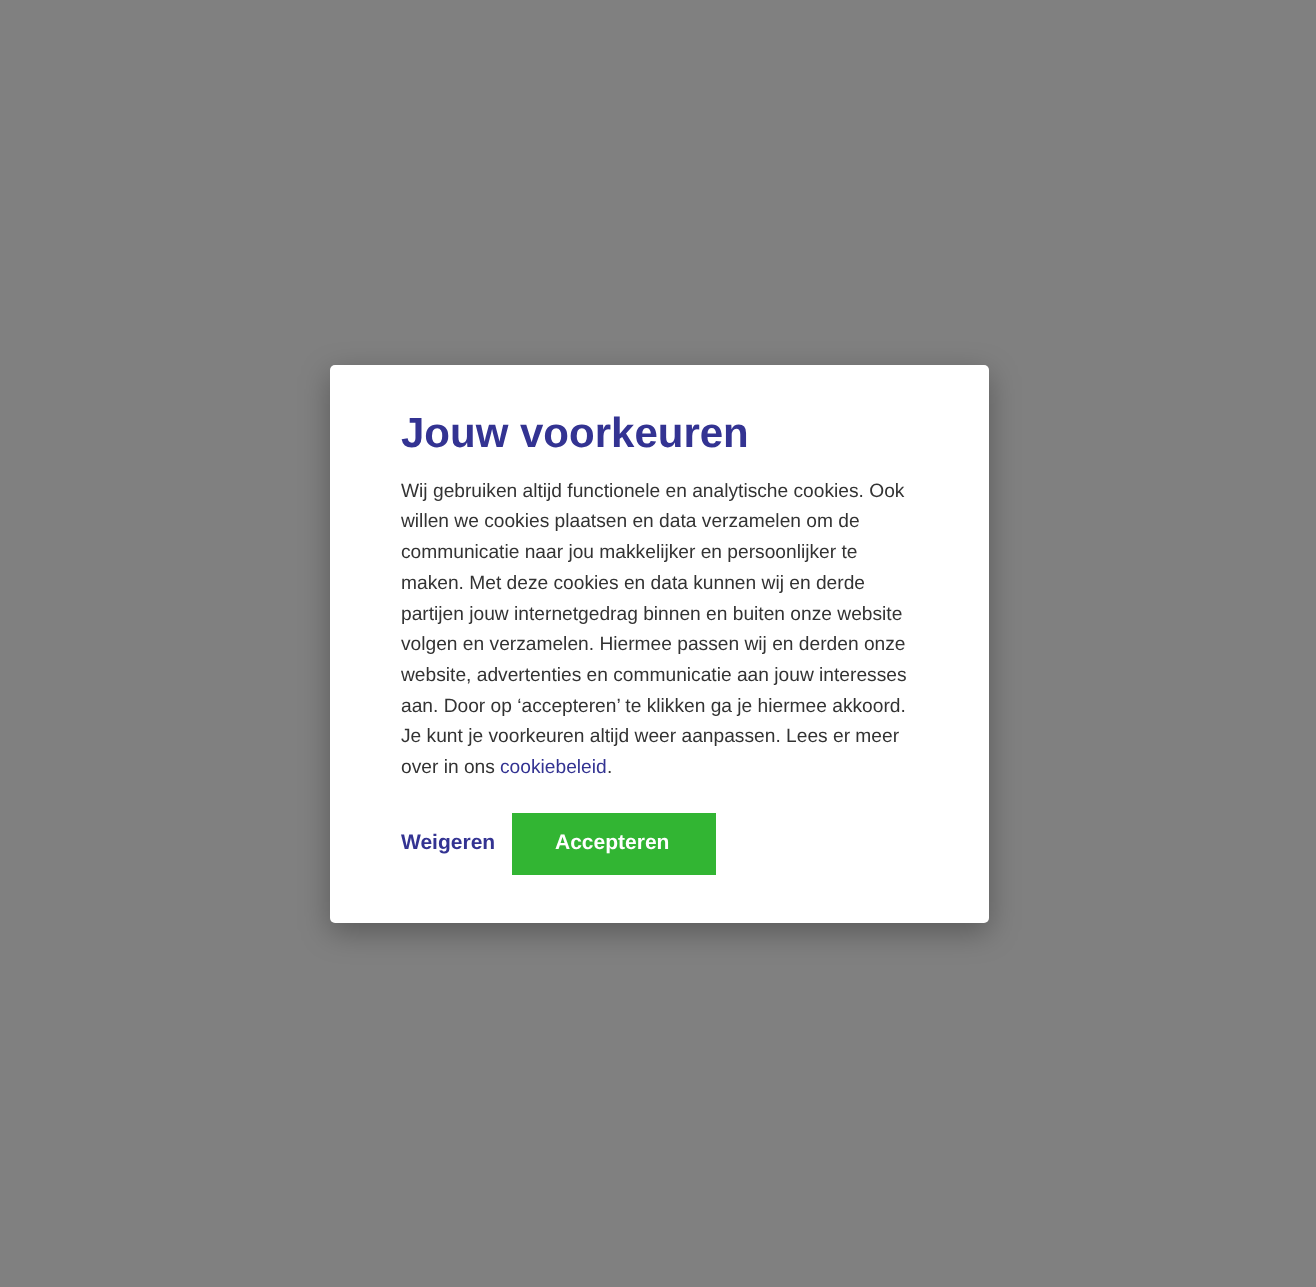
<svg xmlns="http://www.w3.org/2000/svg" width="1316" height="1287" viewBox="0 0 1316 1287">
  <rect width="100%" height="100%" fill="#808080"/>
  <rect x="330" y="374" width="659" height="558" rx="5" fill="#0000004d" filter="blur(15px)"/>
  <rect x="330" y="365" width="659" height="558" rx="5" fill="#fff"/>
  <path d="M512 813h204v62H512z" fill="#32b533"/>
  <text x="401" y="447" font-family="Liberation Sans" font-size="42" font-weight="bold" fill="#333392">Jouw voorkeuren</text>
  <g font-family="Liberation Sans" font-size="19.2" fill="#333">
    <text x="401" y="497">Wij gebruiken altijd functionele en analytische cookies. Ook</text>
    <text x="401" y="527">willen we cookies plaatsen en data verzamelen om de</text>
    <text x="401" y="558">communicatie naar jou makkelijker en persoonlijker te</text>
    <text x="401" y="589">maken. Met deze cookies en data kunnen wij en derde</text>
    <text x="401" y="620">partijen jouw internetgedrag binnen en buiten onze website</text>
    <text x="401" y="650">volgen en verzamelen. Hiermee passen wij en derden onze</text>
    <text x="401" y="681">website, advertenties en communicatie aan jouw interesses</text>
    <text x="401" y="712">aan. Door op ‘accepteren’ te klikken ga je hiermee akkoord.</text>
    <text x="401" y="742">Je kunt je voorkeuren altijd weer aanpassen. Lees er meer</text>
    <text x="401" y="773">over in ons</text>
  </g>
  <text x="500" y="773" font-family="Liberation Sans" font-size="19.2" fill="#333392">cookiebeleid</text>
  <text x="607" y="773" font-family="Liberation Sans" font-size="19.2" fill="#333">.</text>
  <text x="401" y="849" font-family="Liberation Sans" font-size="21" font-weight="bold" fill="#333392">Weigeren</text>
  <text x="555" y="849" font-family="Liberation Sans" font-size="21" font-weight="bold" fill="#fff">Accepteren</text>
</svg>
